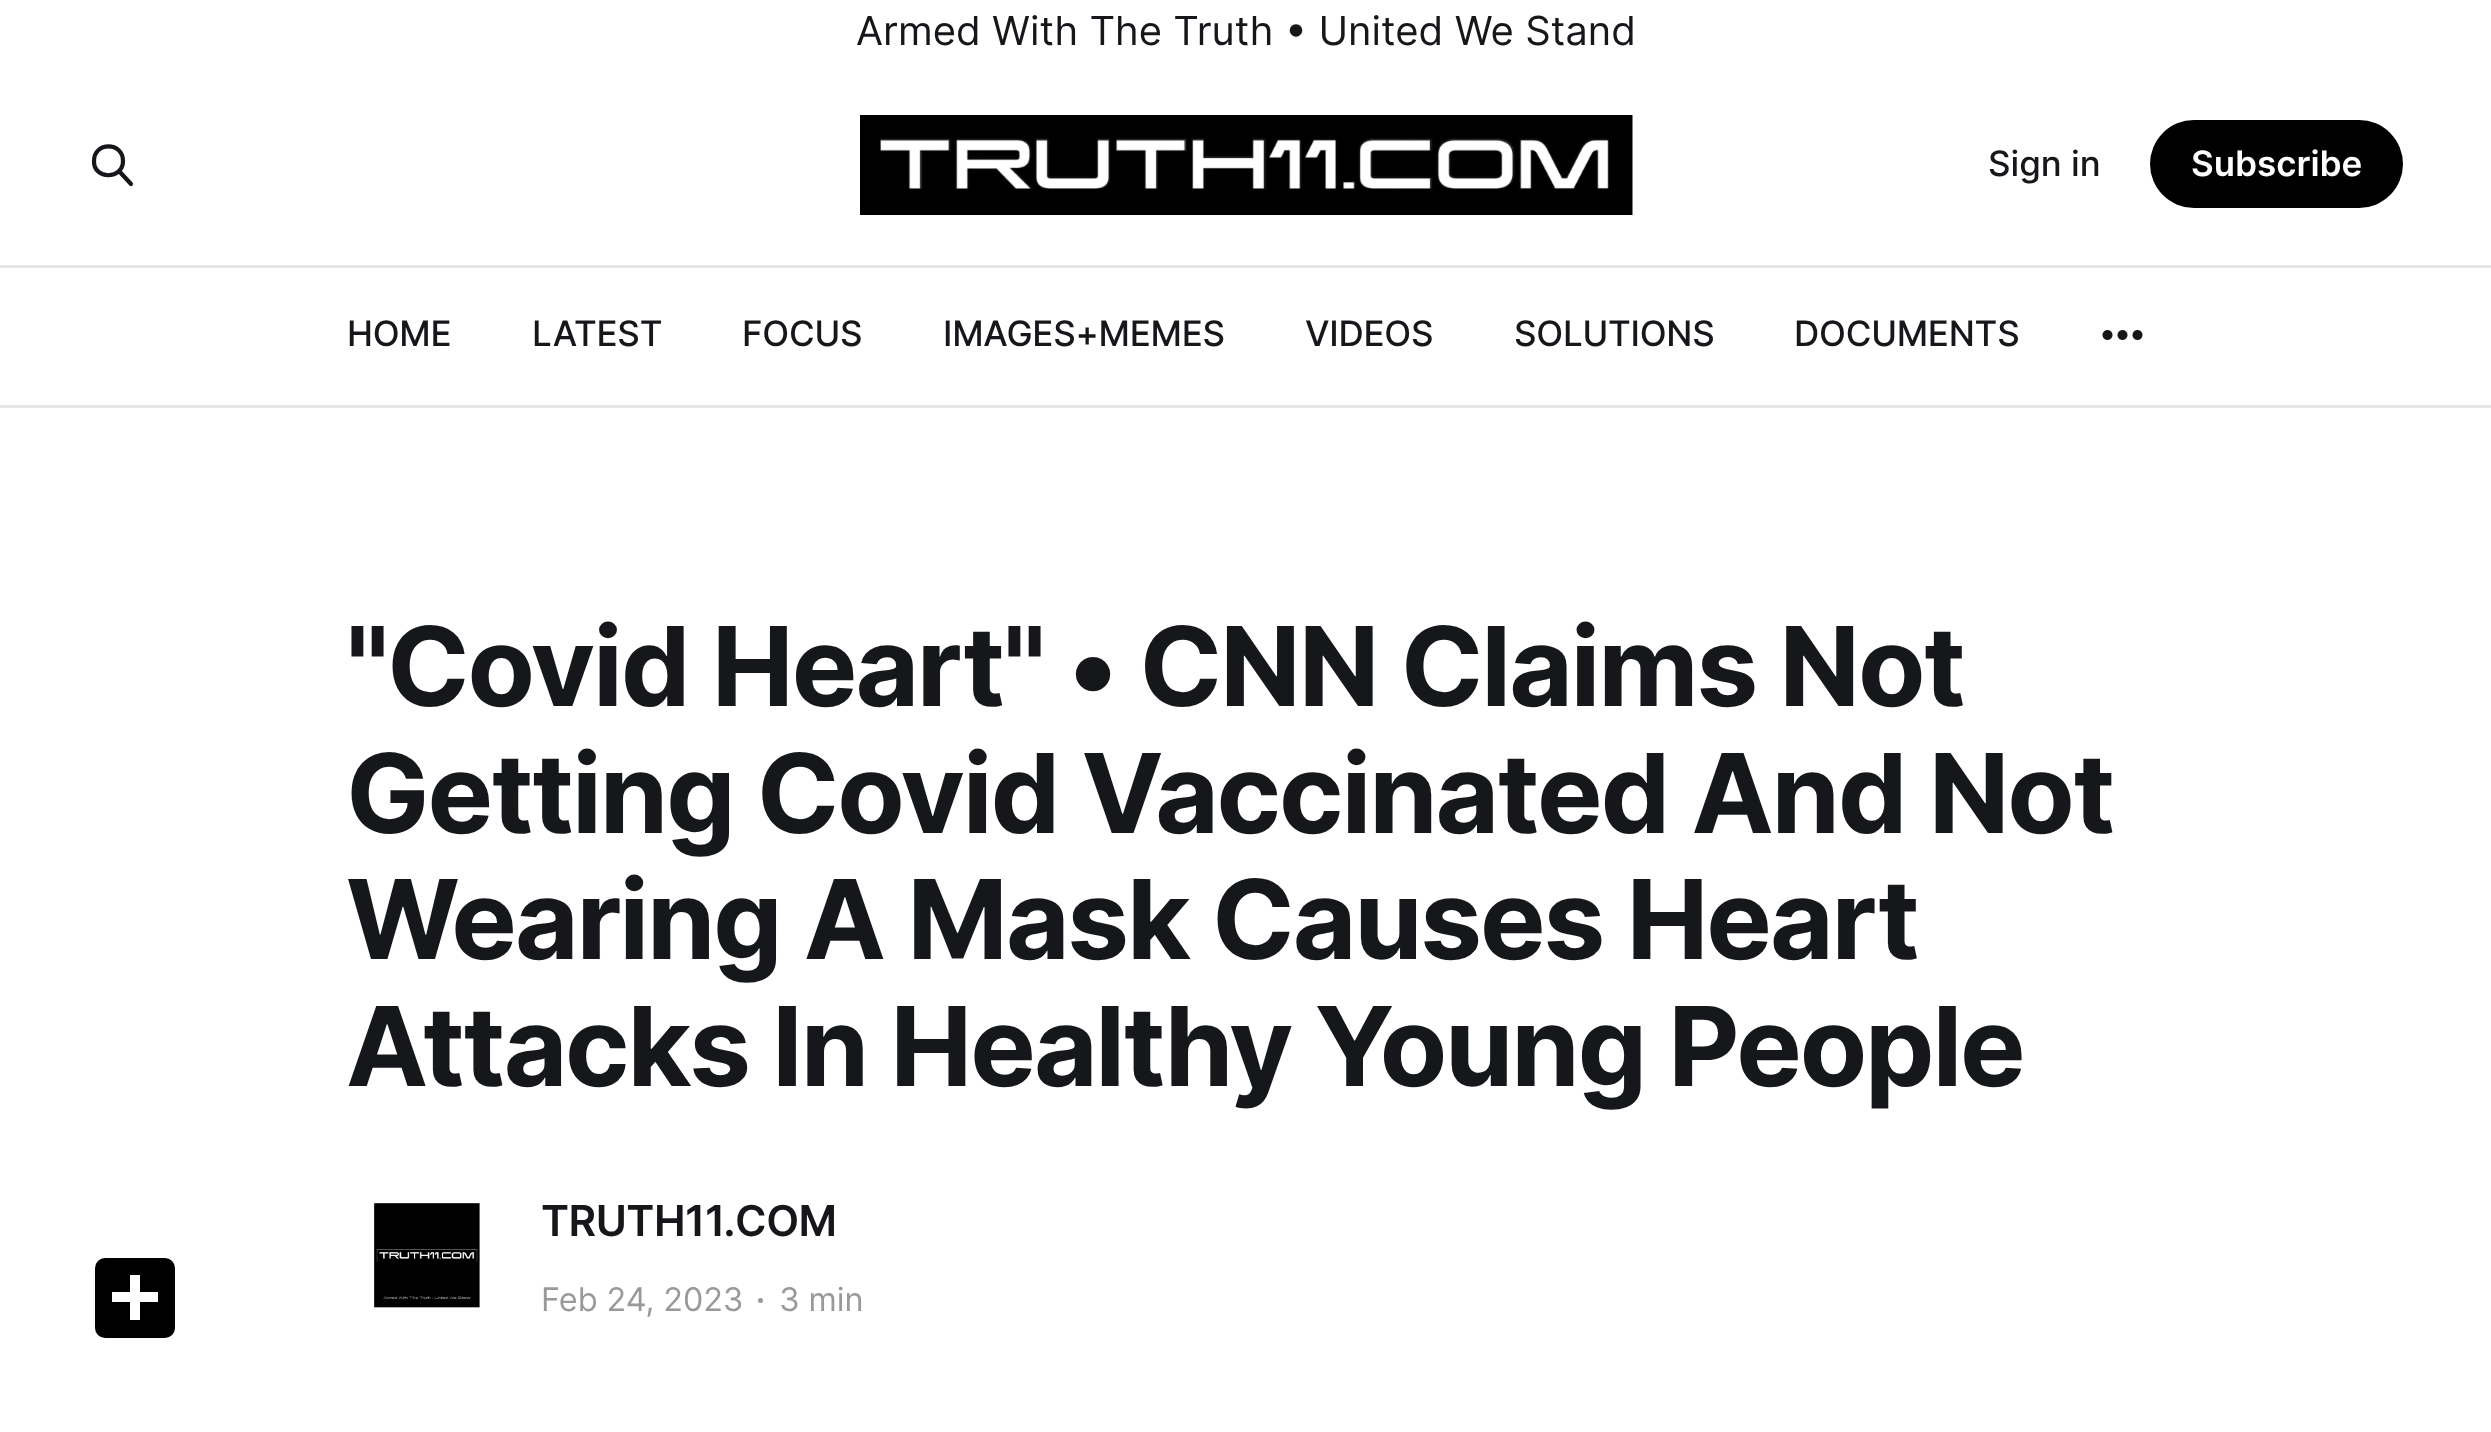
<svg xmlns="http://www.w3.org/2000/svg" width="2491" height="1432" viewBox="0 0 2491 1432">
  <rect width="100%" height="100%" fill="#fff"/>
  <rect x="95" y="1258" width="80" height="80" rx="10" fill="#000"/>
  <path d="M130 1275h10v45H130z" fill="#fff"/>
  <path d="M112 1292h46v10H112z" fill="#fff"/>
  <image x="860" y="115" width="773" height="100" href="img/1.png"/>
  <path d="M131 184L119 171M123 161C123 180 93.5 180 94 161C94 141.5 123 141.5 123 161Z" fill="none" stroke="#15171a" stroke-width="4.2" stroke-linecap="round" stroke-linejoin="round"/>
  <rect x="2150" y="120" width="253" height="88" rx="44" fill="#000"/>
  <path d="M0 265h2491v3H0z" fill="#e6e6e6"/>
  <image x="2102" y="330" width="41" height="10" href="img/2.png"/>
  <path d="M0 405h2491v3H0z" fill="#e6e6e6"/>
  <image x="374" y="1203" width="106" height="105" href="img/3.png"/>
  <circle cx="760.5" cy="1300.5" r="2.5" fill="#999"/>
  <text x="856" y="45" font-family="Inter" font-size="40" fill="#15171a">Armed With The Truth • United We Stand</text>
  <text x="1988" y="176" font-family="Inter" font-size="35" font-weight="500" fill="#15171a">Sign in</text>
  <text x="2191" y="176" font-family="Inter" font-size="35" font-weight="600" fill="#fff">Subscribe</text>
  <g font-family="Inter" font-size="35" font-weight="500" letter-spacing="-0.25" fill="#15171a">
    <text x="347" y="346">HOME</text>
    <text x="532" y="346">LATEST</text>
    <text x="742" y="346">FOCUS</text>
    <text x="943" y="346">IMAGES+MEMES</text>
    <text x="1305" y="346">VIDEOS</text>
    <text x="1514" y="346">SOLUTIONS</text>
    <text x="1794" y="346">DOCUMENTS</text>
  </g>
  <g font-family="Inter" font-size="110" font-weight="bold" letter-spacing="-2.2" fill="#15171a">
    <text x="346" y="706">"Covid Heart" • CNN Claims Not</text>
    <text x="346" y="833">Getting Covid Vaccinated And Not</text>
    <text x="346" y="959">Wearing A Mask Causes Heart</text>
    <text x="346" y="1086">Attacks In Healthy Young People</text>
  </g>
  <text x="541" y="1236" font-family="Inter" font-size="42.5" font-weight="600" letter-spacing="-0.5" fill="#15171a">TRUTH11.COM</text>
  <g font-family="Inter" font-size="32.5" letter-spacing="-0.1" fill="#999">
    <text x="541" y="1311">Feb 24, 2023</text>
    <text x="779" y="1311">3 min</text>
  </g>
</svg>
